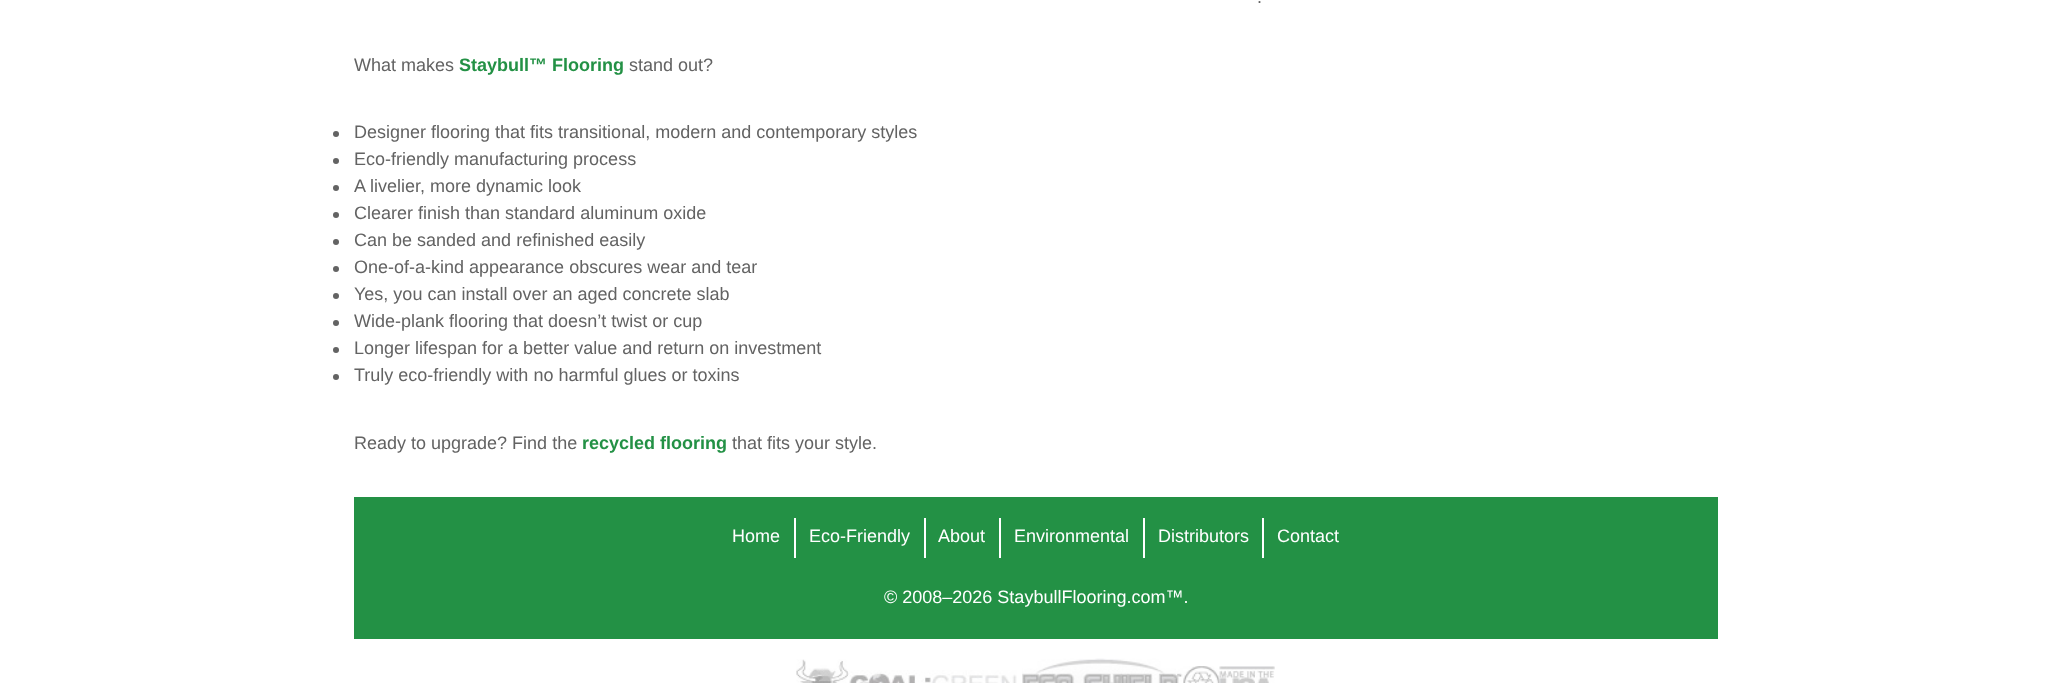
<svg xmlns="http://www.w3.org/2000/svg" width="2071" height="683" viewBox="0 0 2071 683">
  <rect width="100%" height="100%" fill="#fff"/>
  <circle cx="336" cy="134" r="3" fill="#636363"/>
  <circle cx="336" cy="161" r="3" fill="#636363"/>
  <circle cx="336" cy="188" r="3" fill="#636363"/>
  <circle cx="336" cy="215" r="3" fill="#636363"/>
  <circle cx="336" cy="242" r="3" fill="#636363"/>
  <circle cx="336" cy="269" r="3" fill="#636363"/>
  <circle cx="336" cy="296" r="3" fill="#636363"/>
  <circle cx="336" cy="323" r="3" fill="#636363"/>
  <circle cx="336" cy="350" r="3" fill="#636363"/>
  <circle cx="336" cy="377" r="3" fill="#636363"/>
  <path d="M354 497h1364v142H354z" fill="#239145"/>
  <path d="M794 518h2v40H794z" fill="#fff"/>
  <path d="M924 518h2v40H924z" fill="#fff"/>
  <path d="M999 518h2v40H999z" fill="#fff"/>
  <path d="M1143 518h2v40H1143z" fill="#fff"/>
  <path d="M1262 518h2v40H1262z" fill="#fff"/>
  <image x="796" y="659" width="53" height="24" href="img/1.png"/>
  <image x="849" y="670" width="168" height="13" href="img/2.png"/>
  <image x="1022" y="658" width="161" height="25" href="img/3.png"/>
  <image x="1183" y="666" width="37" height="17" href="img/4.png"/>
  <image x="1219" y="666" width="56" height="17" href="img/5.png"/>
  <g font-family="Liberation Sans" font-size="18" fill="#636363">
    <text x="1257" y="3">.</text>
    <text x="354" y="71">What makes</text>
  </g>
  <text x="459" y="71" font-family="Liberation Sans" font-size="18" font-weight="bold" fill="#239145">Staybull™ Flooring</text>
  <g font-family="Liberation Sans" font-size="18" fill="#636363">
    <text x="629" y="71">stand out?</text>
    <text x="354" y="138">Designer flooring that fits transitional, modern and contemporary styles</text>
    <text x="354" y="165">Eco-friendly manufacturing process</text>
    <text x="354" y="192">A livelier, more dynamic look</text>
    <text x="354" y="219">Clearer finish than standard aluminum oxide</text>
    <text x="354" y="246">Can be sanded and refinished easily</text>
    <text x="354" y="273">One-of-a-kind appearance obscures wear and tear</text>
    <text x="354" y="300">Yes, you can install over an aged concrete slab</text>
    <text x="354" y="327">Wide-plank flooring that doesn’t twist or cup</text>
    <text x="354" y="354">Longer lifespan for a better value and return on investment</text>
    <text x="354" y="381">Truly eco-friendly with no harmful glues or toxins</text>
    <text x="354" y="449">Ready to upgrade? Find the</text>
  </g>
  <text x="582" y="449" font-family="Liberation Sans" font-size="18" font-weight="bold" fill="#239145">recycled flooring</text>
  <text x="732" y="449" font-family="Liberation Sans" font-size="18" fill="#636363">that fits your style.</text>
  <g font-family="Liberation Sans" font-size="18" fill="#fff">
    <text x="732" y="542">Home</text>
    <text x="809" y="542">Eco-Friendly</text>
    <text x="938" y="542">About</text>
    <text x="1014" y="542">Environmental</text>
    <text x="1158" y="542">Distributors</text>
    <text x="1277" y="542">Contact</text>
    <text x="884" y="603">© 2008–2026 StaybullFlooring.com™.</text>
  </g>
</svg>
